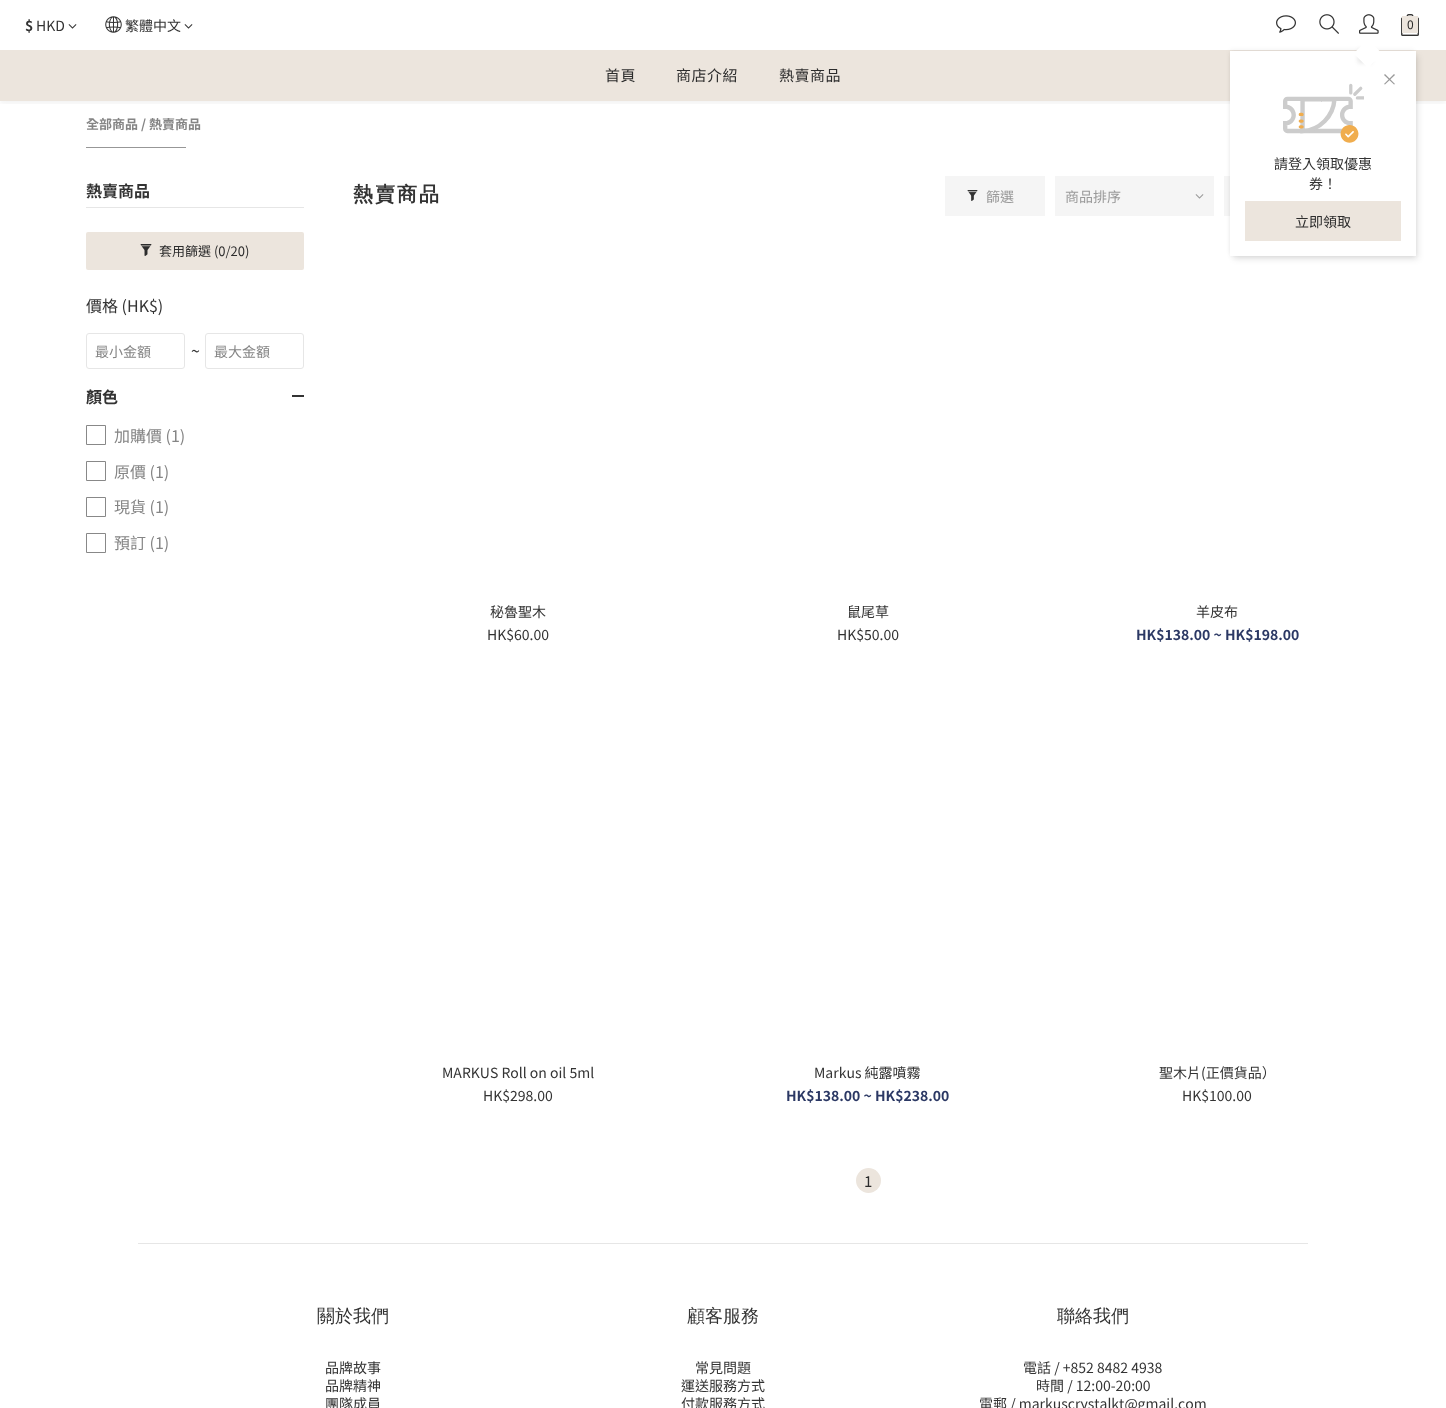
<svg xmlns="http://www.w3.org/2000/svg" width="1446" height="1408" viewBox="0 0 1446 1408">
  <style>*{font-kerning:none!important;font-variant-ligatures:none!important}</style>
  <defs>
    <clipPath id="clip1"><path d="M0 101h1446v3H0z"/></clipPath>
    <clipPath id="clip2"><path d="M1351 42H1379V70H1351ZM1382 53.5L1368 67.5L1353.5 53.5L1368 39.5Z" clip-rule="evenodd"/></clipPath>
  </defs>
  <rect width="100%" height="100%" fill="#fff"/>
  <g clip-path="url(#clip1)">
    <path d="M0 2h1446v101H0z" fill="#0000000f" filter="blur(3px)"/>
  </g>
  <image x="68" y="24" width="9" height="5" href="img/1.png"/>
  <image x="105" y="16" width="17" height="17" href="img/2.png"/>
  <image x="184" y="24" width="9" height="5" href="img/1.png"/>
  <image x="1276" y="15" width="20" height="18" href="img/3.png"/>
  <image x="1319" y="14" width="20" height="20" href="img/4.png"/>
  <image x="1401" y="14" width="18" height="22" href="img/5.png"/>
  <path d="M1402 16h16v17H1402z" fill="#ece5dd"/>
  <image x="1359" y="14" width="20" height="20" href="img/6.png"/>
  <path d="M0 50h1446v51H0z" fill="#ece5dd"/>
  <path d="M1224 176h6v40H1224z" fill="#f5f5f5"/>
  <path d="M1230 50h184v203H1230z" fill="#0000000f" filter="blur(2px)"/>
  <path d="M1231 54h184v203H1231z" fill="#0000000f" filter="blur(2px)"/>
  <path d="M1234 56h184v203H1234z" fill="#0000001a" filter="blur(3px)"/>
  <path d="M1230 51h186v205H1230z" fill="#fff"/>
  <g clip-path="url(#clip2)">
    <path d="M1358 49h14v14H1358z" fill="#0000001a" filter="blur(2px)"/>
  </g>
  <path d="M1353.5 53.5L1368 39.5V53.5ZM1368 39.5L1382 53.5H1368Z" fill="#fff"/>
  <path d="M1394 74L1395 75L1385 84.5L1384 84Z" fill="#999"/>
  <path d="M1384 75L1385 74L1395 84L1394 84.5Z" fill="#999"/>
  <image x="1283" y="83" width="81" height="60" href="img/7.png"/>
  <path d="M1245 201h156v40H1245z" fill="#ece5dd"/>
  <path d="M86 147h100v1H86z" fill="#979797"/>
  <path d="M86 207h218v1H86z" fill="#e6e6e6"/>
  <rect x="86" y="232" width="218" height="38" rx="2" fill="#ece5dd"/>
  <image x="140" y="244" width="12" height="12" href="img/8.png"/>
  <rect x="86.5" y="333.5" width="98" height="35" rx="2.5" fill="none" stroke="#e6e6e6"/>
  <rect x="205.5" y="333.5" width="98" height="35" rx="2.5" fill="none" stroke="#e6e6e6"/>
  <path d="M292 395h12v2H292z" fill="#333"/>
  <path d="M86.5 425.5h19v19H86.5z" fill="none" stroke="#888"/>
  <path d="M86.5 461.5h19v19H86.5z" fill="none" stroke="#888"/>
  <path d="M86.5 497.5h19v19H86.5z" fill="none" stroke="#888"/>
  <path d="M86.5 533.5h19v19H86.5z" fill="none" stroke="#888"/>
  <path d="M945 176h100v40H945z" fill="#f5f5f5"/>
  <image x="967" y="190" width="11" height="11" href="img/9.png"/>
  <path d="M1055 176h159v40H1055z" fill="#f5f5f5"/>
  <image x="1195" y="194" width="9" height="5" href="img/10.png"/>
  <circle cx="868.5" cy="1180.5" r="12.5" fill="#ece5dd"/>
  <path d="M138 1243h1170v1H138z" fill="#e6e6e6"/>
  <text x="25" y="31" font-family="Noto Sans TC" font-size="14" font-weight="bold" fill="#333">$</text>
  <g font-family="Noto Sans TC" font-size="14" fill="#333">
    <text x="36" y="31">HKD</text>
    <text x="125" y="31">繁體中文</text>
  </g>
  <text x="1407" y="29" font-family="Noto Sans TC" font-size="12" fill="#2c2c2c">0</text>
  <g font-family="Noto Sans TC" font-size="14" fill="#333">
    <text x="1274" y="169">請登入領取優惠</text>
    <text x="1309" y="189">券！</text>
  </g>
  <text x="1295" y="227" font-family="Noto Sans TC" font-size="14" fill="#2c2c2c">立即領取</text>
  <g font-family="Noto Sans TC" font-size="15" letter-spacing="0.5" fill="#2c2c2c">
    <text x="605" y="81">首頁</text>
    <text x="676" y="81">商店介紹</text>
    <text x="779" y="81">熱賣商品</text>
  </g>
  <text x="86" y="129" font-family="Noto Sans TC" font-size="13" font-weight="bold" fill="#858585">全部商品 / 熱賣商品</text>
  <text x="86" y="197" font-family="Noto Sans TC" font-size="16" font-weight="bold" fill="#333">熱賣商品</text>
  <text x="159" y="256" font-family="Noto Sans TC" font-size="13" fill="#2c2c2c">套用篩選 (0/20)</text>
  <text x="86" y="312" font-family="Noto Sans TC" font-size="16" fill="#333">價格 (HK$)</text>
  <text x="95" y="357" font-family="Noto Sans TC" font-size="14" fill="#858585">最小金額</text>
  <text x="191" y="357" font-family="Noto Sans TC" font-size="16" fill="#333">~</text>
  <text x="214" y="357" font-family="Noto Sans TC" font-size="14" fill="#858585">最大金額</text>
  <text x="86" y="403" font-family="Noto Sans TC" font-size="16" font-weight="bold" fill="#333">顏色</text>
  <g font-family="Noto Sans TC" font-size="16" fill="#858585">
    <text x="114" y="442">加購價 (1)</text>
    <text x="114" y="478">原價 (1)</text>
    <text x="114" y="513">現貨 (1)</text>
    <text x="114" y="549">預訂 (1)</text>
  </g>
  <text x="353" y="201" font-family="WenQuanYi Zen Hei" font-size="20" font-weight="bold" letter-spacing="2" fill="#333">熱賣商品</text>
  <g font-family="Noto Sans TC" font-size="14" fill="#999">
    <text x="986" y="202">篩選</text>
    <text x="1065" y="202">商品排序</text>
  </g>
  <g font-family="Noto Sans TC" font-size="14" fill="#333">
    <text x="490" y="617">秘魯聖木</text>
    <text x="487" y="640">HK$60.00</text>
    <text x="847" y="617">鼠尾草</text>
    <text x="837" y="640">HK$50.00</text>
    <text x="1196" y="617">羊皮布</text>
  </g>
  <text x="1136" y="640" font-family="Noto Sans TC" font-size="14" font-weight="bold" fill="#2b3864">HK$138.00 ~ HK$198.00</text>
  <g font-family="Noto Sans TC" font-size="14" fill="#333">
    <text x="442" y="1078">MARKUS Roll on oil 5ml</text>
    <text x="483" y="1101">HK$298.00</text>
    <text x="814" y="1078">Markus 純露噴霧</text>
  </g>
  <text x="786" y="1101" font-family="Noto Sans TC" font-size="14" font-weight="bold" fill="#2b3864">HK$138.00 ~ HK$238.00</text>
  <g font-family="Noto Sans TC" font-size="14" fill="#333">
    <text x="1159" y="1078">聖木片(正價貨品）</text>
    <text x="1182" y="1101">HK$100.00</text>
  </g>
  <text x="864" y="1187" font-family="Noto Sans TC" font-size="15" fill="#2c2c2c">1</text>
  <text x="317" y="1322" font-family="WenQuanYi Zen Hei" font-size="18" font-weight="500" fill="#333">關於我們</text>
  <g font-family="Noto Sans TC" font-size="14" fill="#333">
    <text x="325" y="1373">品牌故事</text>
    <text x="325" y="1391">品牌精神</text>
    <text x="325" y="1409">團隊成員</text>
  </g>
  <text x="687" y="1322" font-family="WenQuanYi Zen Hei" font-size="18" font-weight="500" fill="#333">顧客服務</text>
  <g font-family="Noto Sans TC" font-size="14" fill="#333">
    <text x="695" y="1373">常見問題</text>
    <text x="681" y="1391">運送服務方式</text>
    <text x="681" y="1409">付款服務方式</text>
  </g>
  <text x="1057" y="1322" font-family="WenQuanYi Zen Hei" font-size="18" font-weight="500" fill="#333">聯絡我們</text>
  <g font-family="Noto Sans TC" font-size="14" fill="#333">
    <text x="1023" y="1373">電話 / +852 8482 4938</text>
    <text x="1036" y="1391">時間 / 12:00-20:00</text>
    <text x="979" y="1409">電郵 / markuscrystalkt@gmail.com</text>
  </g>
</svg>
